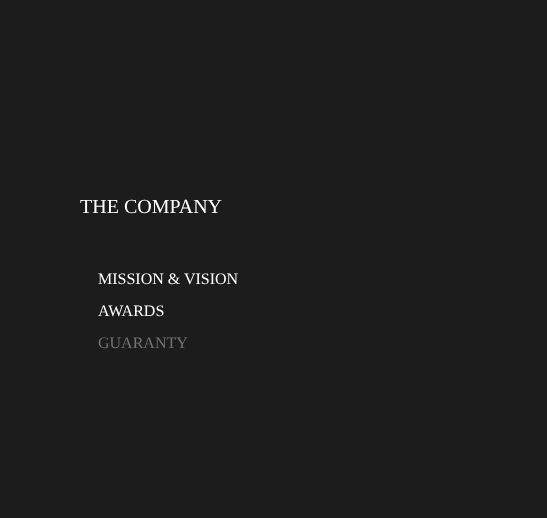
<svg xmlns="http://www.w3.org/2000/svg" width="547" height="518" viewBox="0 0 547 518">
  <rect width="100%" height="100%" fill="#1c1c1c"/>
  <text x="80" y="213" font-family="Liberation Serif" font-size="20" fill="#fff">THE COMPANY</text>
  <g font-family="Liberation Serif" font-size="16" fill="#fff">
    <text x="98" y="284">MISSION &amp; VISION</text>
    <text x="98" y="316">AWARDS</text>
  </g>
  <text x="98" y="348" font-family="Liberation Serif" font-size="16" fill="#757373">GUARANTY</text>
</svg>
